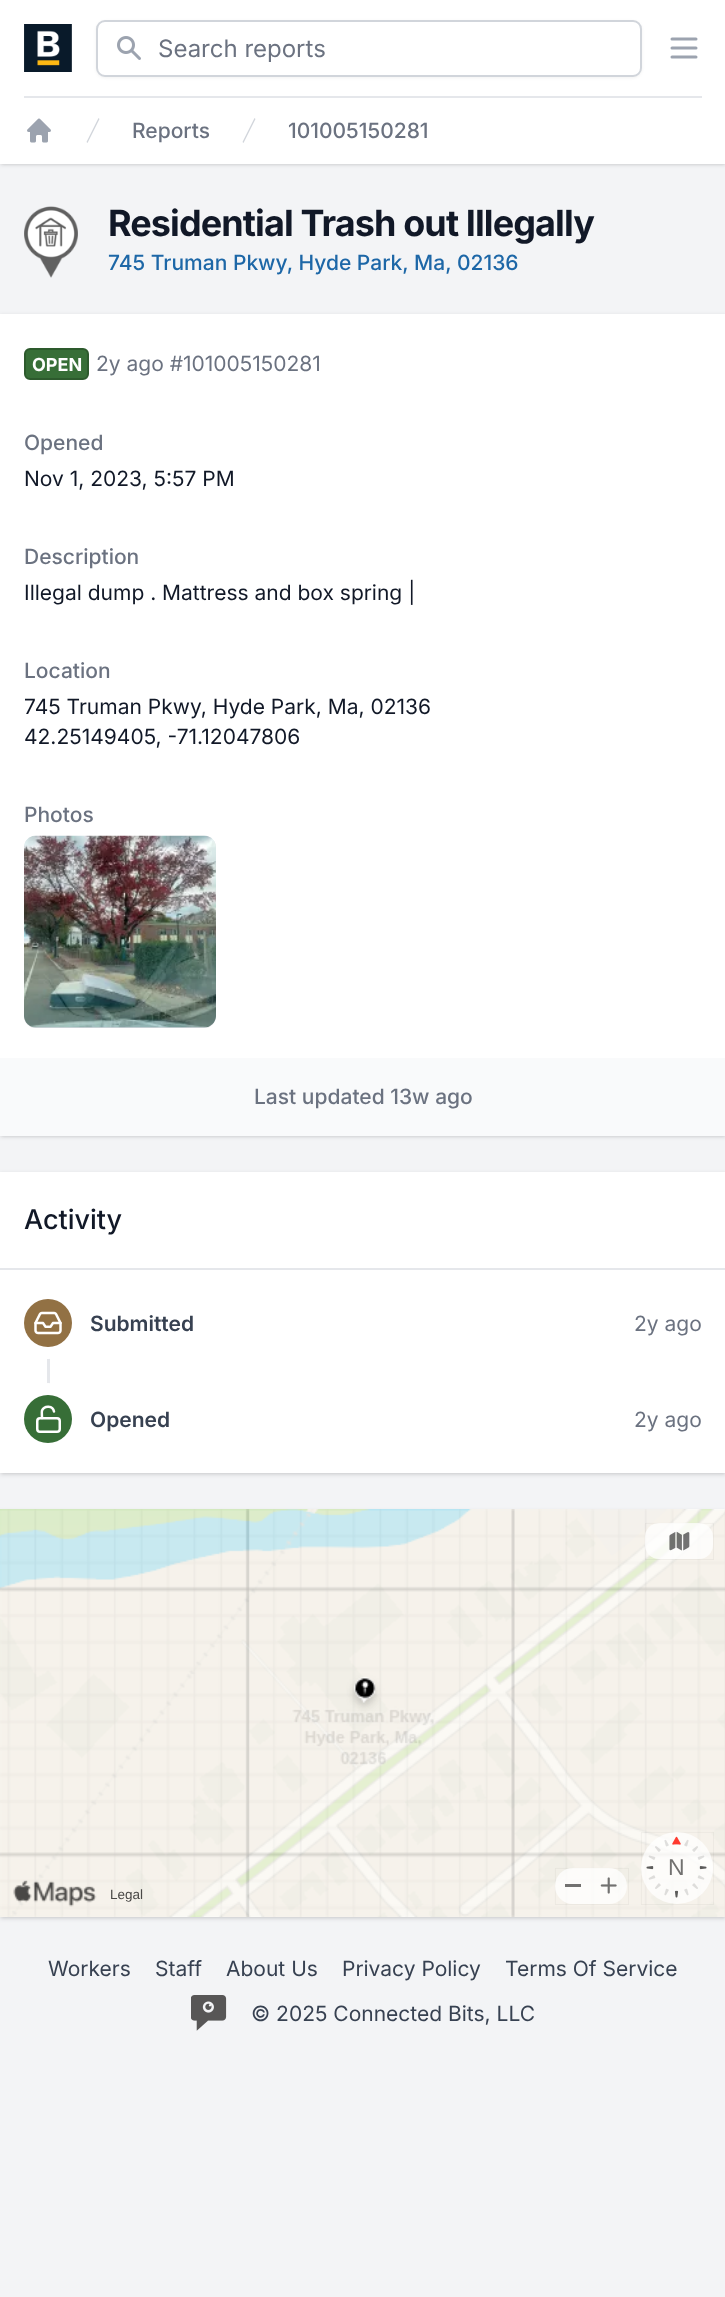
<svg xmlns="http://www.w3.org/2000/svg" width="725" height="2297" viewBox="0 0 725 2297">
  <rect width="100%" height="100%" fill="#f3f4f6"/>
  <path d="M2 3h723v161H2z" fill="#0000001a" filter="blur(1.5px)"/>
  <path d="M0 2h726v163H0z" fill="#0000001a" filter="blur(2px)"/>
  <path d="M0 0h725v164H0z" fill="#fff"/>
  <image x="24" y="24" width="48" height="48" href="img/1.png"/>
  <rect x="96" y="21" width="546" height="57" rx="9" fill="#0000000d" filter="blur(1.5px)"/>
  <rect x="97" y="21" width="544" height="55" rx="8" fill="#fff" stroke="#d1d5db" stroke-width="2"/>
  <image x="117" y="36" width="24" height="24" href="img/2.png"/>
  <path d="M672 39H696M672 48H696M672 57H696" fill="none" stroke="#9ca3af" stroke-width="3" stroke-linecap="round" stroke-linejoin="round"/>
  <path d="M24 96h678v2H24z" fill="#e5e7eb"/>
  <image x="27" y="118" width="24" height="25" href="img/3.png"/>
  <path d="M86.5 142L98.5 118L99.5 119L87.5 143Z" fill="#d1d5db"/>
  <path d="M242.5 142L254.5 118L255.5 119L243.5 143Z" fill="#d1d5db"/>
  <image x="24" y="206" width="54" height="72" href="img/4.png"/>
  <path d="M2 317h723v819H2z" fill="#0000001a" filter="blur(1.5px)"/>
  <path d="M0 315h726v822H0z" fill="#0000001a" filter="blur(2px)"/>
  <path d="M0 314h725v744H0z" fill="#fff"/>
  <rect x="25" y="349" width="63" height="30" rx="5" fill="#376e37" stroke="#2d5a2d" stroke-width="2"/>
  <rect x="24" y="836" width="192" height="192" rx="12" fill="#d1d5db"/>
  <image x="24" y="835" width="192" height="193" href="img/5.png"/>
  <path d="M0 1058h725v78H0z" fill="#f9fafb"/>
  <path d="M2 1175h723v298H2z" fill="#0000001a" filter="blur(1.5px)"/>
  <path d="M0 1173h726v302H0z" fill="#0000001a" filter="blur(2px)"/>
  <path d="M0 1172h725v301H0z" fill="#fff"/>
  <path d="M0 1268h725v2H0z" fill="#e5e7eb"/>
  <path d="M47 1346h3v50H47z" fill="#e5e7eb"/>
  <circle cx="48" cy="1323" r="30" fill="none" stroke="#fff" stroke-width="12"/>
  <circle cx="48" cy="1323" r="24" fill="#927144"/>
  <image x="34" y="1311" width="28" height="24" href="img/6.png"/>
  <circle cx="48" cy="1419" r="30" fill="none" stroke="#fff" stroke-width="12"/>
  <circle cx="48" cy="1419" r="24" fill="#376e37"/>
  <rect x="37.25" y="1418.25" width="22.5" height="13.5" rx="2.75" fill="none" stroke="#fff" stroke-width="2.5"/>
  <path d="M42 1418C42 1415.5 41.5 1412.5 42 1410.5C44.5 1405 53 1405.5 54 1411.5" fill="none" stroke="#fff" stroke-width="2.5" stroke-linecap="round" stroke-linejoin="round"/>
  <path d="M2 1512h723v405H2z" fill="#0000001a" filter="blur(1.5px)"/>
  <path d="M0 1511h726v408H0z" fill="#0000001a" filter="blur(2px)"/>
  <image x="0" y="1509" width="725" height="408" href="img/7.png"/>
  <image x="0" y="1509" width="725" height="408" href="img/8.png"/>
  <path d="M645.4 1523.4h68.2v36.2H645.4z" fill="none" stroke="#0000000d" stroke-width="0.8"/>
  <rect x="645" y="1523" width="68" height="36" rx="14" fill="#ffffffbf"/>
  <image x="669" y="1531" width="21" height="20" href="img/9.png"/>
  <path d="M555.4 1868.4h73.2v36.2H555.4z" fill="none" stroke="#0000000d" stroke-width="0.8"/>
  <rect x="555" y="1868" width="72" height="36" rx="18" fill="#ffffffbf"/>
  <path d="M565 1884h16v3H565z" fill="#727170"/>
  <image x="600" y="1877" width="17" height="17" href="img/10.png"/>
  <path d="M641.4 1832.4h72.2v72.2H641.4z" fill="none" stroke="#0000000d" stroke-width="0.8"/>
  <circle cx="677" cy="1868" r="36" fill="#ffffffbf"/>
  <image x="646" y="1836" width="61" height="62" href="img/11.png"/>
  <image x="13" y="1880" width="84" height="27" href="img/12.png"/>
  <image x="191" y="1995" width="36" height="36" href="img/13.png"/>
  <text x="158" y="57" font-family="Inter" font-size="24" fill="#6b7280">Search reports</text>
  <g font-family="Inter" font-size="21" font-weight="500" fill="#6b7280">
    <text x="132" y="138">Reports</text>
    <text x="288" y="138">101005150281</text>
  </g>
  <text x="108" y="236" font-family="Inter" font-size="36" font-weight="bold" letter-spacing="-0.9" fill="#111827">Residential Trash out Illegally</text>
  <text x="108" y="270" font-family="Inter" font-size="21" font-weight="500" fill="#1d67a7">745 Truman Pkwy, Hyde Park, Ma, 02136</text>
  <text x="32" y="371" font-family="Inter" font-size="18" font-weight="bold" fill="#fff">OPEN</text>
  <text x="96" y="371" font-family="Inter" font-size="21" fill="#6b7280">2y ago #101005150281</text>
  <text x="24" y="450" font-family="Inter" font-size="21" font-weight="500" fill="#6b7280">Opened</text>
  <text x="24" y="486" font-family="Inter" font-size="21" fill="#111827">Nov 1, 2023, 5:57 PM</text>
  <text x="24" y="564" font-family="Inter" font-size="21" font-weight="500" fill="#6b7280">Description</text>
  <text x="24" y="600" font-family="Inter" font-size="21" fill="#111827">Illegal dump . Mattress and box spring |</text>
  <text x="24" y="678" font-family="Inter" font-size="21" font-weight="500" fill="#6b7280">Location</text>
  <g font-family="Inter" font-size="21" fill="#111827">
    <text x="24" y="714">745 Truman Pkwy, Hyde Park, Ma, 02136</text>
    <text x="24" y="744">42.25149405, -71.12047806</text>
  </g>
  <g font-family="Inter" font-size="21" font-weight="500" fill="#6b7280">
    <text x="24" y="822">Photos</text>
    <text x="254" y="1104">Last updated 13w ago</text>
  </g>
  <text x="24" y="1229" font-family="Inter" font-size="27" font-weight="500" fill="#111827">Activity</text>
  <text x="90" y="1331" font-family="Inter" font-size="21" font-weight="600" fill="#374151">Submitted</text>
  <text x="634" y="1331" font-family="Inter" font-size="21" fill="#6b7280">2y ago</text>
  <text x="90" y="1427" font-family="Inter" font-size="21" font-weight="600" fill="#374151">Opened</text>
  <text x="634" y="1427" font-family="Inter" font-size="21" fill="#6b7280">2y ago</text>
  <text x="668" y="1875" font-family="Liberation Sans" font-size="23" fill="#727170">N</text>
  <text x="110" y="1899" font-family="Liberation Sans" font-size="13.5" fill="#494846">Legal</text>
  <g font-family="Inter" font-size="21" fill="#374151">
    <text x="48" y="1976">Workers</text>
    <text x="155" y="1976">Staff</text>
    <text x="226" y="1976">About Us</text>
    <text x="342" y="1976">Privacy Policy</text>
    <text x="505" y="1976">Terms Of Service</text>
    <text x="251" y="2021">© 2025 Connected Bits, LLC</text>
  </g>
</svg>
